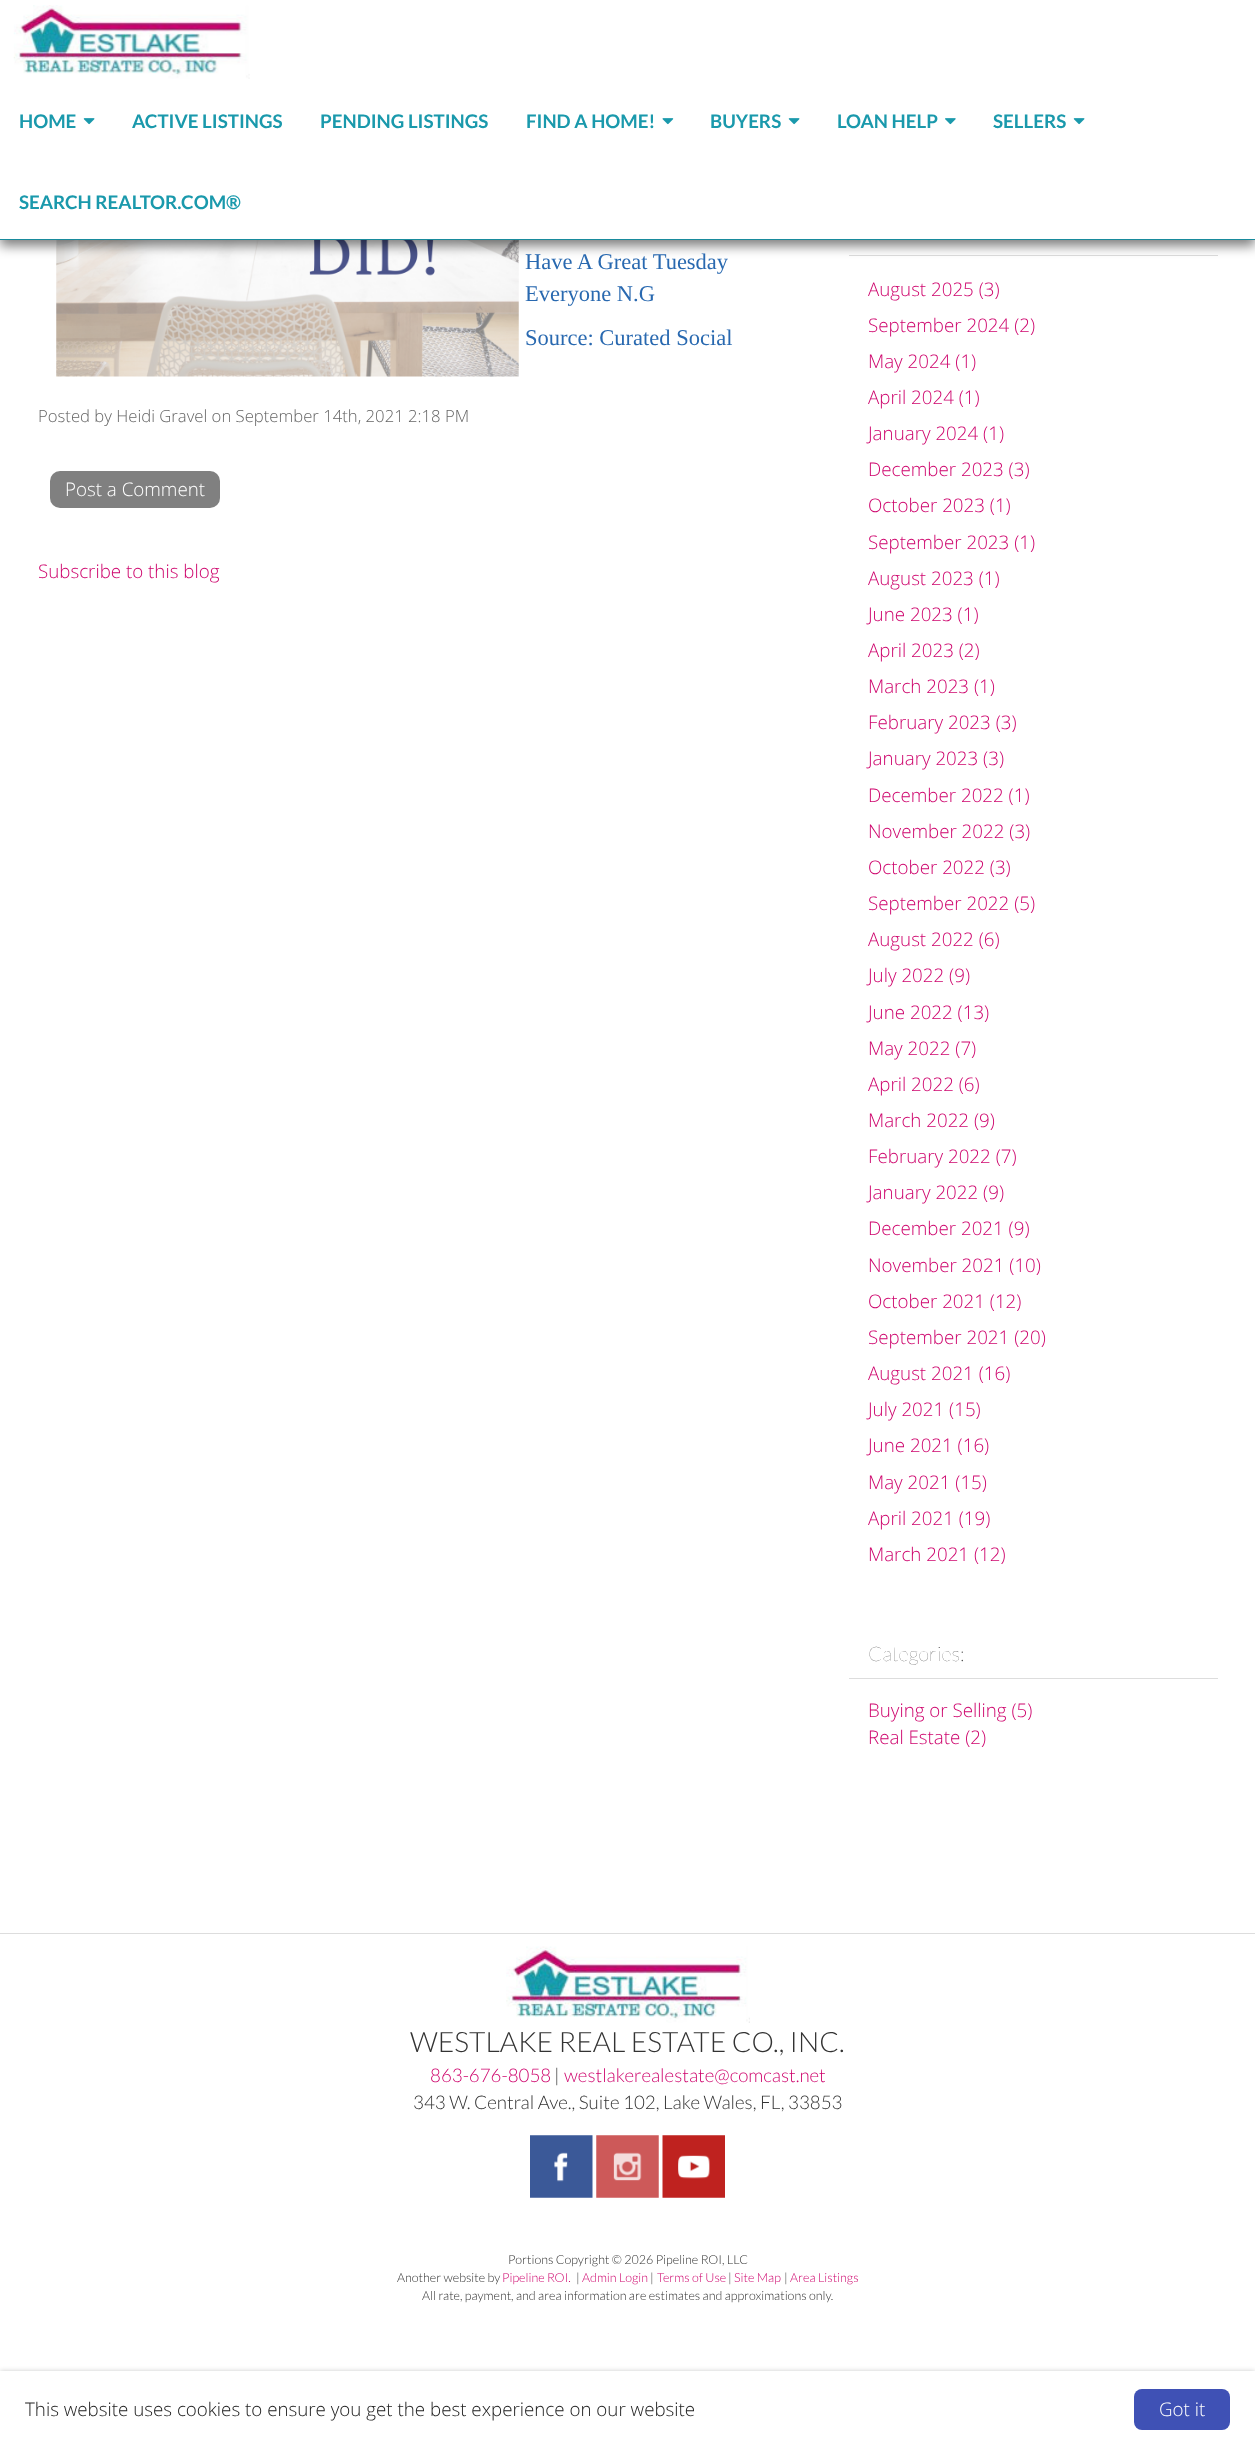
<svg xmlns="http://www.w3.org/2000/svg" width="1255" height="2447" viewBox="0 0 1255 2447">
  <defs>
    <clipPath id="clip1"><path d="M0 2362H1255V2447H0ZM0 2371H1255V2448H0Z" clip-rule="evenodd"/></clipPath>
  </defs>
  <rect width="100%" height="100%" fill="#fff"/>
  <image x="56" y="240" width="463" height="137" href="img/5.png"/>
  <path d="M849 255h369v1H849z" fill="#ddd"/>
  <path d="M0 6h1255v240H0z" fill="#00000080" filter="blur(6px)"/>
  <path d="M0 0h1255v239H0z" fill="#fff"/>
  <path d="M0 239h1255v1H0z" fill="#188b9d"/>
  <image x="13" y="5" width="237" height="74" href="img/1.png"/>
  <image x="83" y="118" width="12" height="7" href="img/2.png"/>
  <image x="662" y="118" width="12" height="7" href="img/3.png"/>
  <image x="788" y="118" width="12" height="7" href="img/2.png"/>
  <image x="945" y="118" width="11" height="7" href="img/4.png"/>
  <image x="1073" y="118" width="12" height="7" href="img/2.png"/>
  <rect x="50" y="471" width="170" height="37" rx="10" fill="#808080"/>
  <path d="M849 1678h369v1H849z" fill="#ddd"/>
  <path d="M0 1933h1255v1H0z" fill="#ddd"/>
  <image x="506" y="1946" width="244" height="77" href="img/6.png"/>
  <image x="530" y="2135" width="63" height="63" href="img/7.png"/>
  <image x="596" y="2135" width="63" height="63" href="img/8.png"/>
  <image x="662" y="2135" width="63" height="63" href="img/9.png"/>
  <g clip-path="url(#clip1)">
    <path d="M0 2371h1255v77H0z" fill="#00000033" filter="blur(2.5px)"/>
  </g>
  <path d="M0 2371h1255v1H0z" fill="#ffffffe6"/>
  <rect x="1134" y="2389" width="96" height="41" rx="8" fill="#3f51b5"/>
  <g font-family="Lato" font-size="18.75" font-weight="bold" fill="#1a99ac">
    <text x="19" y="128">HOME</text>
    <text x="132" y="128">ACTIVE LISTINGS</text>
    <text x="320" y="128">PENDING LISTINGS</text>
    <text x="526" y="128">FIND A HOME!</text>
    <text x="710" y="128">BUYERS</text>
    <text x="837" y="128">LOAN HELP</text>
    <text x="993" y="128">SELLERS</text>
    <text x="19" y="209">SEARCH REALTOR.COM®</text>
  </g>
  <g font-family="Liberation Serif" font-size="22.5" fill="#2969b0">
    <text x="525" y="269">Have A Great Tuesday</text>
    <text x="525" y="301">Everyone N.G</text>
    <text x="525" y="345">Source: Curated Social</text>
  </g>
  <text x="38" y="422" font-family="Open Sans" font-size="16.7" font-weight="300" fill="#666">Posted by Heidi Gravel on September 14th, 2021 2:18 PM</text>
  <text x="65" y="496" font-family="Open Sans" font-size="18.75" font-weight="300" fill="#fff">Post a Comment</text>
  <g font-family="Open Sans" font-size="18.75" font-weight="300" fill="#ce056d">
    <text x="38" y="578">Subscribe to this blog</text>
    <text x="868" y="296">August 2025 (3)</text>
    <text x="868" y="332">September 2024 (2)</text>
    <text x="868" y="368">May 2024 (1)</text>
    <text x="868" y="404">April 2024 (1)</text>
    <text x="868" y="440">January 2024 (1)</text>
    <text x="868" y="476">December 2023 (3)</text>
    <text x="868" y="512">October 2023 (1)</text>
    <text x="868" y="549">September 2023 (1)</text>
    <text x="868" y="585">August 2023 (1)</text>
    <text x="868" y="621">June 2023 (1)</text>
    <text x="868" y="657">April 2023 (2)</text>
    <text x="868" y="693">March 2023 (1)</text>
    <text x="868" y="729">February 2023 (3)</text>
    <text x="868" y="765">January 2023 (3)</text>
    <text x="868" y="802">December 2022 (1)</text>
    <text x="868" y="838">November 2022 (3)</text>
    <text x="868" y="874">October 2022 (3)</text>
    <text x="868" y="910">September 2022 (5)</text>
    <text x="868" y="946">August 2022 (6)</text>
    <text x="868" y="982">July 2022 (9)</text>
    <text x="868" y="1019">June 2022 (13)</text>
    <text x="868" y="1055">May 2022 (7)</text>
    <text x="868" y="1091">April 2022 (6)</text>
    <text x="868" y="1127">March 2022 (9)</text>
    <text x="868" y="1163">February 2022 (7)</text>
    <text x="868" y="1199">January 2022 (9)</text>
    <text x="868" y="1235">December 2021 (9)</text>
    <text x="868" y="1272">November 2021 (10)</text>
    <text x="868" y="1308">October 2021 (12)</text>
    <text x="868" y="1344">September 2021 (20)</text>
    <text x="868" y="1380">August 2021 (16)</text>
    <text x="868" y="1416">July 2021 (15)</text>
    <text x="868" y="1452">June 2021 (16)</text>
    <text x="868" y="1489">May 2021 (15)</text>
    <text x="868" y="1525">April 2021 (19)</text>
    <text x="868" y="1561">March 2021 (12)</text>
  </g>
  <text x="868" y="1661" font-family="Lato" font-size="20" font-weight="100" fill="#333">Categories:</text>
  <g font-family="Open Sans" font-size="18.75" font-weight="300" fill="#ce056d">
    <text x="868" y="1717">Buying or Selling (5)</text>
    <text x="868" y="1744">Real Estate (2)</text>
  </g>
  <text x="410" y="2052" font-family="Lato" font-size="28.1" font-weight="300" fill="#333">WESTLAKE REAL ESTATE CO., INC.</text>
  <text x="430" y="2082" font-family="Lato" font-size="18.75" font-weight="300" fill="#ce056d">863-676-8058</text>
  <text x="554" y="2082" font-family="Lato" font-size="18.75" font-weight="300" fill="#333">|</text>
  <text x="564" y="2082" font-family="Lato" font-size="18.75" font-weight="300" fill="#ce056d">westlakerealestate@comcast.net</text>
  <text x="413" y="2109" font-family="Lato" font-size="18.75" font-weight="300" fill="#333">343 W. Central Ave., Suite 102, Lake Wales, FL, 33853</text>
  <g font-family="Lato" font-size="12.5" font-weight="300" fill="#333">
    <text x="508" y="2264">Portions Copyright © 2026 Pipeline ROI, LLC</text>
    <text x="397" y="2282">Another website by</text>
  </g>
  <text x="502" y="2282" font-family="Lato" font-size="12.5" font-weight="300" fill="#ce056d">Pipeline ROI.</text>
  <text x="576" y="2282" font-family="Lato" font-size="12.5" font-weight="300" fill="#333">|</text>
  <text x="582" y="2282" font-family="Lato" font-size="12.5" font-weight="300" fill="#ce056d">Admin Login</text>
  <text x="650" y="2282" font-family="Lato" font-size="12.5" font-weight="300" fill="#333">|</text>
  <text x="657" y="2282" font-family="Lato" font-size="12.5" font-weight="300" fill="#ce056d">Terms of Use</text>
  <text x="728" y="2282" font-family="Lato" font-size="12.5" font-weight="300" fill="#333">|</text>
  <text x="734" y="2282" font-family="Lato" font-size="12.5" font-weight="300" fill="#ce056d">Site Map</text>
  <text x="784" y="2282" font-family="Lato" font-size="12.5" font-weight="300" fill="#333">|</text>
  <text x="790" y="2282" font-family="Lato" font-size="12.5" font-weight="300" fill="#ce056d">Area Listings</text>
  <text x="422" y="2300" font-family="Lato" font-size="12.5" font-weight="300" fill="#333">All rate, payment, and area information are estimates and approximations only.</text>
  <text x="25" y="2416" font-family="Open Sans" font-size="18.75" font-weight="300" fill="#222">This website uses cookies to ensure you get the best experience on our website</text>
  <text x="1159" y="2416" font-family="Open Sans" font-size="18.75" font-weight="300" fill="#fff">Got it</text>
</svg>
